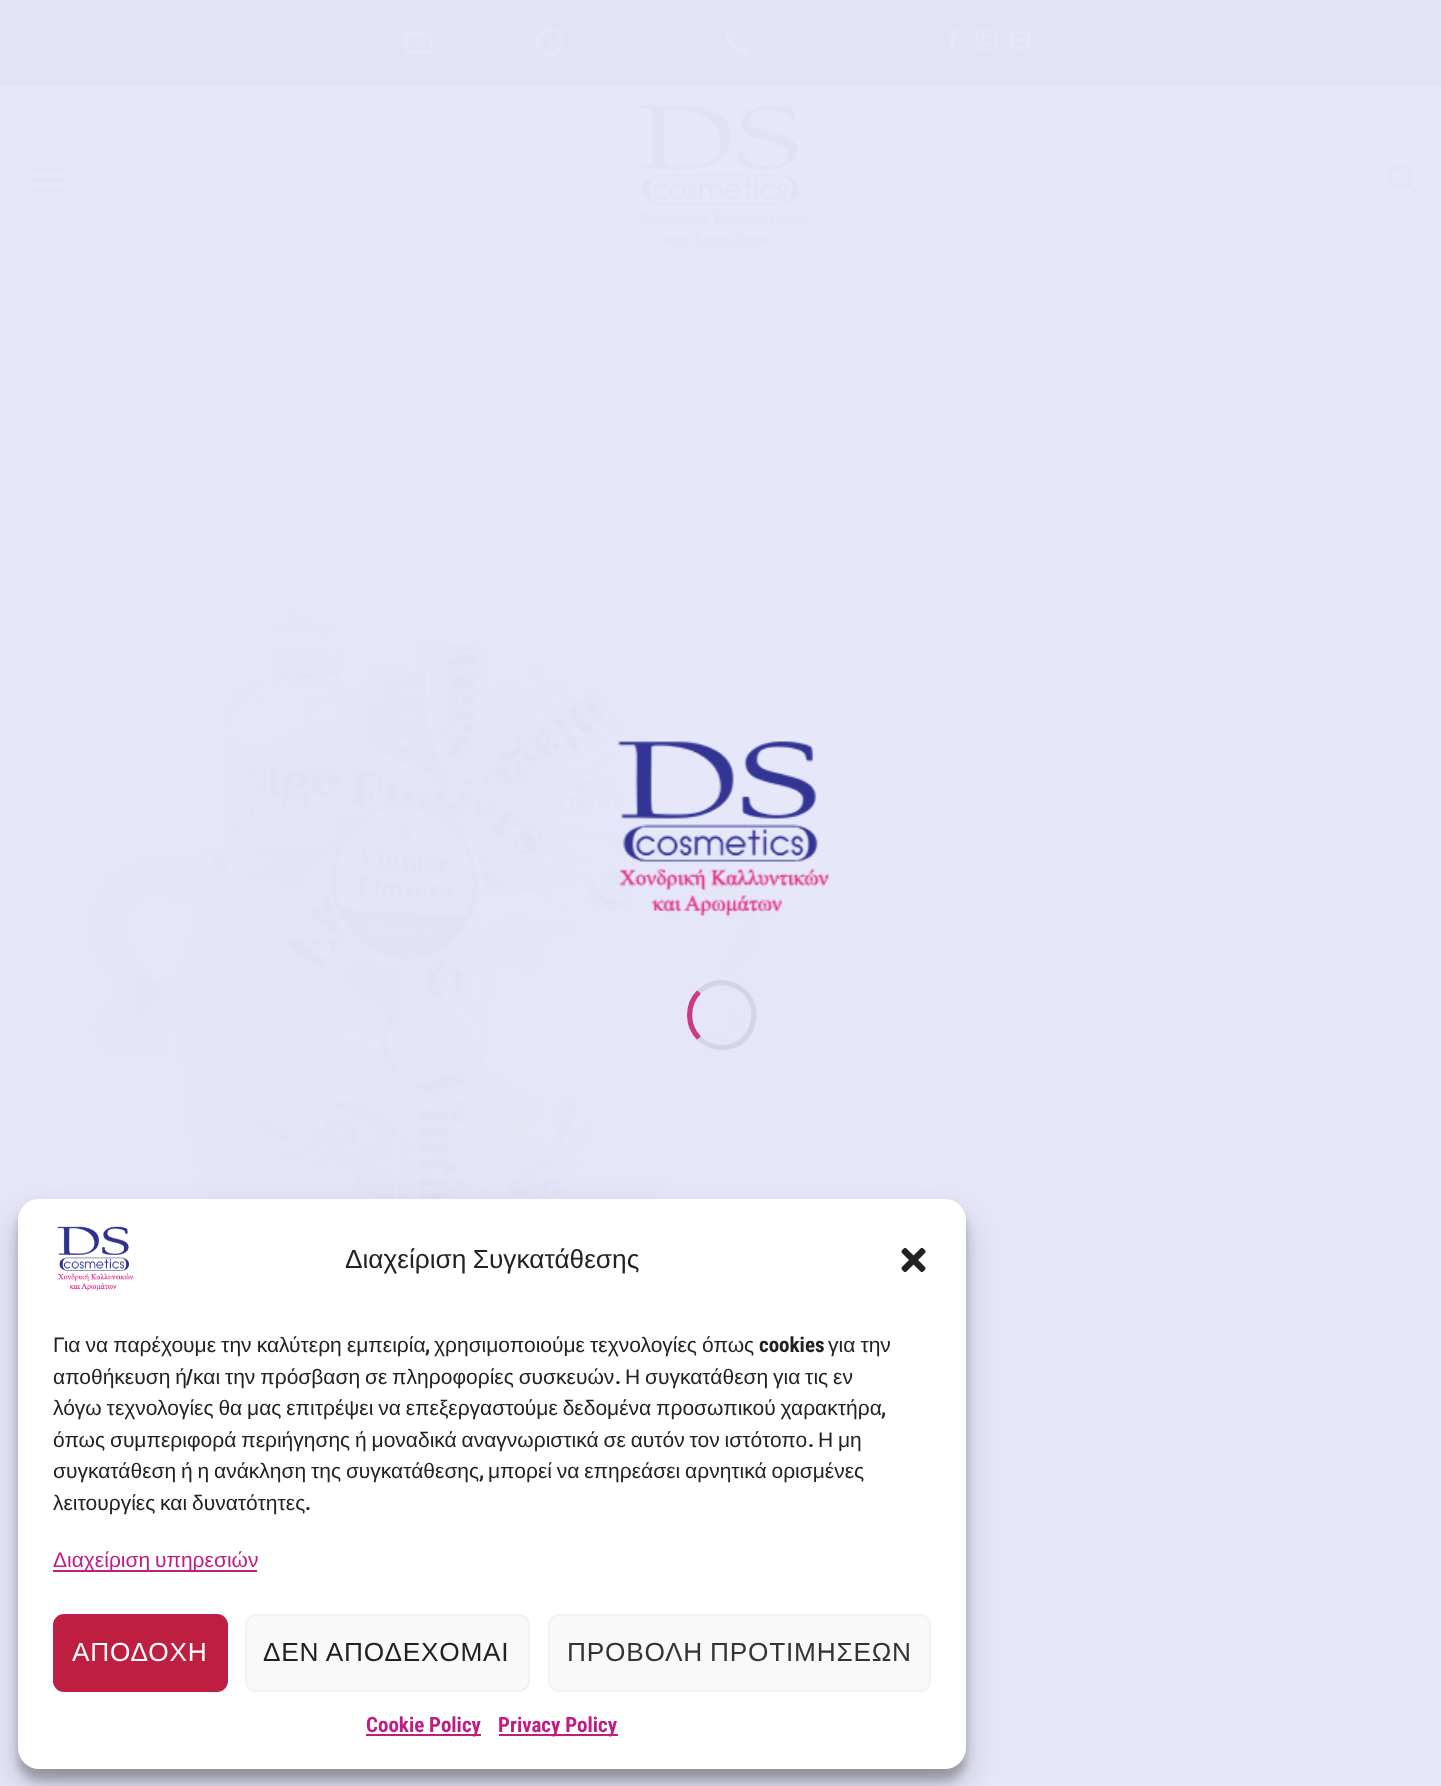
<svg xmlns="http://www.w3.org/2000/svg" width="1441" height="1786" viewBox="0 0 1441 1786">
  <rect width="100%" height="100%" fill="#e6e7f9"/>
  <path d="M0 0h1441v86H0z" fill="#e4e2f6"/>
  <image x="404" y="31" width="29" height="24" href="img/1.png"/>
  <image x="535" y="28" width="29" height="28" href="img/2.png"/>
  <image x="725" y="29" width="27" height="27" href="img/3.png"/>
  <image x="948" y="29" width="11" height="22" href="img/4.png"/>
  <image x="976" y="29" width="22" height="22" href="img/5.png"/>
  <image x="1009" y="31" width="22" height="18" href="img/6.png"/>
  <image x="29" y="167" width="37" height="26" href="img/7.png"/>
  <image x="637" y="105" width="172" height="144" href="img/8.png"/>
  <image x="1387" y="164" width="29" height="29" href="img/9.png"/>
  <image x="82" y="578" width="698" height="621" href="img/10.png"/>
  <image x="617" y="741" width="212" height="175" href="img/11.png"/>
  <path d="M699 992C706.5 984.5 717.5 981 728 983.5C766 991 760.5 1047.5 722 1047.5C713.5 1047.5 705 1044 699 1038" fill="none" stroke="#d3d4e5" stroke-width="5.2"/>
  <path d="M699 1038C686.5 1025.5 686.5 1004.5 699 992" fill="none" stroke="#c20966c7" stroke-width="5.2"/>
  <rect x="18" y="1209" width="948" height="571" rx="21" fill="#0000003b" filter="blur(5px)"/>
  <rect x="18" y="1216" width="948" height="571" rx="21" fill="#00000030" filter="blur(17.5px)"/>
  <rect x="18" y="1199" width="948" height="570" rx="21" fill="#fff"/>
  <image x="57" y="1226" width="76" height="65" href="img/12.png"/>
  <image x="901" y="1248" width="25" height="24" href="img/13.png"/>
  <path d="M53 1570h204v2H53z" fill="#be1e83"/>
  <rect x="54" y="1615" width="173" height="76" rx="10" fill="#be1e40" stroke="#be1e4b" stroke-width="2"/>
  <rect x="246" y="1615" width="283" height="76" rx="10" fill="#f9f9f9" stroke="#f2f2f2" stroke-width="2"/>
  <rect x="549" y="1615" width="381" height="76" rx="10" fill="#f9f9f9" stroke="#f2f2f2" stroke-width="2"/>
  <path d="M366 1734h115v2H366z" fill="#be1e83"/>
  <path d="M499 1734h119v2H499z" fill="#be1e83"/>
  <text x="345" y="1268" word-spacing="-1" font-family="Liberation Sans" font-size="26.25" fill="#222">Διαχείριση Συγκατάθεσης</text>
  <text x="53" y="1352" word-spacing="-0.75" font-family="Liberation Sans" font-size="21" fill="#222">Για να παρέχουμε την καλύτερη εμπειρία</text>
  <text x="425" y="1352" font-family="Roboto Condensed" font-size="21" font-weight="bold" fill="#222">,</text>
  <text x="434" y="1352" word-spacing="-0.75" font-family="Liberation Sans" font-size="21" fill="#222">χρησιμοποιούμε τεχνολογίες όπως</text>
  <text x="759" y="1352" font-family="Roboto Condensed" font-size="21" font-weight="bold" fill="#222">cookies</text>
  <g font-family="Liberation Sans" font-size="21" fill="#222">
    <text x="828" y="1352" word-spacing="-0.75">για την</text>
    <text x="53" y="1384" word-spacing="-1">αποθήκευση ή</text>
  </g>
  <text x="186" y="1384" font-family="Roboto Condensed" font-size="21" font-weight="bold" fill="#222">/</text>
  <text x="193" y="1384" word-spacing="-1" font-family="Liberation Sans" font-size="21" fill="#222">και την πρόσβαση σε πληροφορίες συσκευών</text>
  <text x="615" y="1384" font-family="Roboto Condensed" font-size="21" font-weight="bold" fill="#222">.</text>
  <g font-family="Liberation Sans" font-size="21" fill="#222">
    <text x="625" y="1384" word-spacing="-1">Η συγκατάθεση για τις εν</text>
    <text x="53" y="1415" word-spacing="-1">λόγω τεχνολογίες θα μας επιτρέψει να επεξεργαστούμε δεδομένα προσωπικού χαρακτήρα</text>
  </g>
  <text x="881" y="1415" font-family="Roboto Condensed" font-size="21" font-weight="bold" fill="#222">,</text>
  <text x="53" y="1447" word-spacing="-1" font-family="Liberation Sans" font-size="21" fill="#222">όπως συμπεριφορά περιήγησης ή μοναδικά αναγνωριστικά σε αυτόν τον ιστότοπο</text>
  <text x="808" y="1447" font-family="Roboto Condensed" font-size="21" font-weight="bold" fill="#222">.</text>
  <g font-family="Liberation Sans" font-size="21" fill="#222">
    <text x="818" y="1447" word-spacing="-1">Η μη</text>
    <text x="53" y="1478" word-spacing="-1">συγκατάθεση ή η ανάκληση της συγκατάθεσης</text>
  </g>
  <text x="479" y="1478" font-family="Roboto Condensed" font-size="21" font-weight="bold" fill="#222">,</text>
  <g font-family="Liberation Sans" font-size="21" fill="#222">
    <text x="488" y="1478" word-spacing="-1">μπορεί να επηρεάσει αρνητικά ορισμένες</text>
    <text x="53" y="1510" word-spacing="-1">λειτουργίες και δυνατότητες</text>
  </g>
  <text x="305" y="1510" font-family="Roboto Condensed" font-size="21" font-weight="bold" fill="#222">.</text>
  <text x="53" y="1567" word-spacing="-1" font-family="Liberation Sans" font-size="21" fill="#be1e83">Διαχείριση υπηρεσιών</text>
  <text x="72" y="1661" font-family="Liberation Sans" font-size="26.25" letter-spacing="0.75" fill="#fff">ΑΠΟΔΟΧΗ</text>
  <text x="263" y="1661" font-family="Liberation Sans" font-size="26.25" letter-spacing="0.75" fill="#222">ΔΕΝ ΑΠΟΔΕΧΟΜΑΙ</text>
  <text x="567" y="1661" word-spacing="-1" font-family="Liberation Sans" font-size="26.25" letter-spacing="0.75" fill="#333">ΠΡΟΒΟΛΗ ΠΡΟΤΙΜΗΣΕΩΝ</text>
  <g font-family="Roboto Condensed" font-size="21" font-weight="bold" fill="#be1e83">
    <text x="366" y="1732">Cookie Policy</text>
    <text x="498" y="1732">Privacy Policy</text>
  </g>
</svg>
